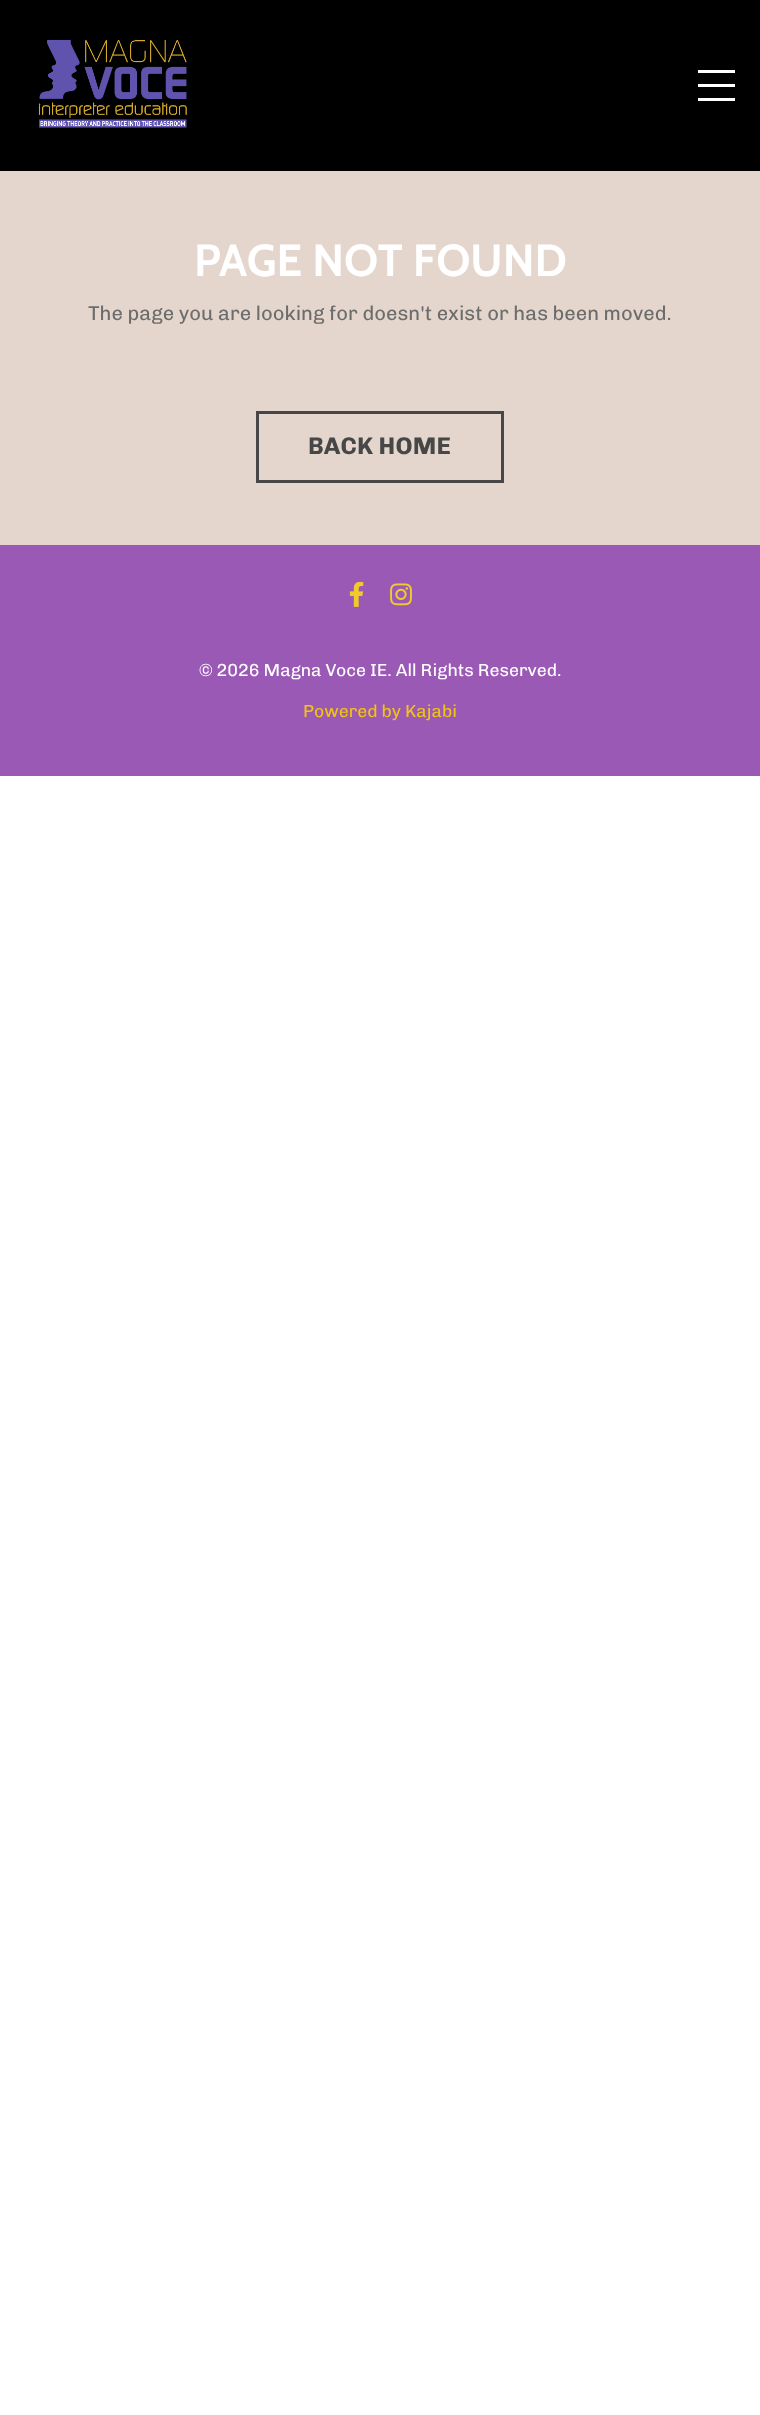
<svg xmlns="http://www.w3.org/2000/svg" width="760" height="2415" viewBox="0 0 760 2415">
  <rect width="100%" height="100%" fill="#fff"/>
  <path d="M0 0h760v171H0z" fill="#000"/>
  <image x="38" y="39" width="149" height="89" href="img/1.png"/>
  <path d="M698 70h37v3H698z" fill="#fff"/>
  <path d="M698 84h37v3H698z" fill="#fff"/>
  <path d="M698 98h37v3H698z" fill="#fff"/>
  <path d="M0 171h760v374H0z" fill="#e4d6cd"/>
  <path d="M257.5 412.5h245v69H257.5z" fill="none" stroke="#474747" stroke-width="3"/>
  <path d="M0 545h760v231H0z" fill="#9b59b6"/>
  <image x="349" y="581" width="15" height="26" href="img/2.png"/>
  <image x="390" y="583" width="22" height="23" href="img/3.png"/>
  <text x="194" y="276" font-family="Cabin" font-size="45" font-weight="bold" fill="#fff">PAGE NOT FOUND</text>
  <text x="88" y="320" font-family="Chivo" font-size="20" fill="#6c6c6c">The page you are looking for doesn't exist or has been moved.</text>
  <text x="308" y="454" font-family="Chivo" font-size="24" font-weight="bold" letter-spacing="0.25" fill="#474747">BACK HOME</text>
  <text x="199" y="676" font-family="Chivo" font-size="17.5" fill="#fff">© 2026 Magna Voce IE. All Rights Reserved.</text>
  <text x="303" y="717" font-family="Chivo" font-size="17.5" fill="#f1c40f">Powered by Kajabi</text>
</svg>
